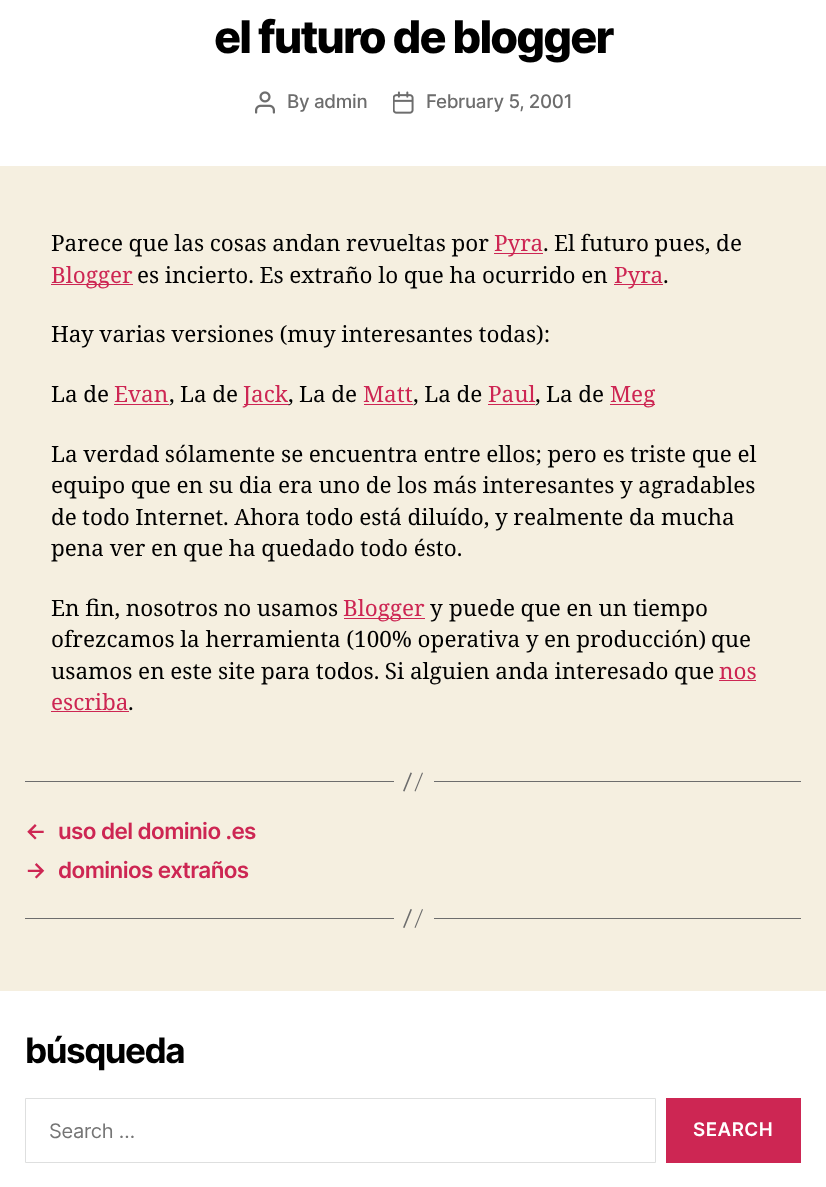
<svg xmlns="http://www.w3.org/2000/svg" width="826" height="1187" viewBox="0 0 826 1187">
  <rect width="100%" height="100%" fill="#f5efe0"/>
  <path d="M0 0h826v166H0z" fill="#fff"/>
  <image x="255" y="91" width="20" height="23" href="img/1.png"/>
  <image x="393" y="91" width="21" height="23" href="img/2.png"/>
  <path d="M494 253h49v1H494z" fill="#cd2653"/>
  <path d="M51 284h82v1H51z" fill="#cd2653"/>
  <path d="M614 284h49v1H614z" fill="#cd2653"/>
  <path d="M114 404h55v1H114z" fill="#cd2653"/>
  <path d="M244 404h45v1H244z" fill="#cd2653"/>
  <path d="M364 404h49v1H364z" fill="#cd2653"/>
  <path d="M488 404h47v1H488z" fill="#cd2653"/>
  <path d="M610 404h45v1H610z" fill="#cd2653"/>
  <path d="M344 618h81v1H344z" fill="#cd2653"/>
  <path d="M719 680h37v1H719z" fill="#cd2653"/>
  <path d="M51 711h78v1H51z" fill="#cd2653"/>
  <path d="M434 781h367v1H434z" fill="#6d6d6d"/>
  <path d="M25 781h369v1H25z" fill="#6d6d6d"/>
  <path d="M410.5 772.5L412 773L404.5 791.5L403 791ZM422 772.5L423 773L415.5 791.5L414.5 791Z" fill="#6d6d6d"/>
  <path d="M434 918h367v1H434z" fill="#6d6d6d"/>
  <path d="M25 918h369v1H25z" fill="#6d6d6d"/>
  <path d="M410.5 909L412 909.5L404.5 928L403 927.5ZM422 909L423 909.5L415.5 928L414.5 927.5Z" fill="#6d6d6d"/>
  <path d="M0 991h826v196H0z" fill="#fff"/>
  <path d="M25.5 1098.5h630v64H25.5z" fill="none" stroke="#dedfdf"/>
  <path d="M666 1098h135v65H666z" fill="#cd2653"/>
  <text x="214" y="53" font-family="Inter" font-size="45" font-weight="800" letter-spacing="-1.9" fill="#000">el futuro de blogger</text>
  <g font-family="Inter" font-size="18.75" font-weight="500" letter-spacing="-0.3" fill="#6d6d6d">
    <text x="287" y="108">By admin</text>
    <text x="426" y="108">February 5, 2001</text>
  </g>
  <text x="51" y="251" word-spacing="-0.25" font-family="Noto Serif" font-size="22.5" fill="#000">Parece que las cosas andan revueltas por</text>
  <text x="494" y="251" font-family="Noto Serif" font-size="22.5" fill="#cd2653">Pyra</text>
  <g font-family="Noto Serif" font-size="22.5" fill="#000">
    <text x="543" y="251">.</text>
    <text x="554" y="251" word-spacing="-0.25">El futuro pues, de</text>
  </g>
  <text x="51" y="283" font-family="Noto Serif" font-size="22.5" fill="#cd2653">Blogger</text>
  <text x="137" y="283" word-spacing="-0.25" font-family="Noto Serif" font-size="22.5" fill="#000">es incierto. Es extraño lo que ha ocurrido en</text>
  <text x="614" y="283" font-family="Noto Serif" font-size="22.5" fill="#cd2653">Pyra</text>
  <g font-family="Noto Serif" font-size="22.5" fill="#000">
    <text x="663" y="283">.</text>
    <text x="51" y="342" word-spacing="-0.25">Hay varias versiones (muy interesantes todas):</text>
    <text x="51" y="402" word-spacing="-0.25">La de</text>
  </g>
  <text x="114" y="402" font-family="Noto Serif" font-size="22.5" fill="#cd2653">Evan</text>
  <g font-family="Noto Serif" font-size="22.5" fill="#000">
    <text x="169" y="402">,</text>
    <text x="180" y="402" word-spacing="-0.25">La de</text>
  </g>
  <text x="243" y="402" font-family="Noto Serif" font-size="22.5" fill="#cd2653">Jack</text>
  <g font-family="Noto Serif" font-size="22.5" fill="#000">
    <text x="288" y="402">,</text>
    <text x="299" y="402" word-spacing="-0.25">La de</text>
  </g>
  <text x="363" y="402" font-family="Noto Serif" font-size="22.5" fill="#cd2653">Matt</text>
  <text x="413" y="402" word-spacing="-0.25" font-family="Noto Serif" font-size="22.5" fill="#000">, La de</text>
  <text x="488" y="402" font-family="Noto Serif" font-size="22.5" fill="#cd2653">Paul</text>
  <g font-family="Noto Serif" font-size="22.5" fill="#000">
    <text x="535" y="402">,</text>
    <text x="546" y="402" word-spacing="-0.25">La de</text>
  </g>
  <text x="610" y="402" font-family="Noto Serif" font-size="22.5" fill="#cd2653">Meg</text>
  <g font-family="Noto Serif" font-size="22.5" fill="#000">
    <text x="51" y="462" word-spacing="-0.25">La verdad sólamente se encuentra entre ellos; pero es triste que el</text>
    <text x="51" y="493" word-spacing="-0.25">equipo que en su dia era uno de los más interesantes y agradables</text>
    <text x="51" y="525">de</text>
    <text x="82" y="525" word-spacing="-0.25">todo Internet. Ahora todo está diluído, y realmente da mucha</text>
    <text x="51" y="556" word-spacing="-0.25">pena ver en que ha quedado todo ésto.</text>
    <text x="51" y="616" word-spacing="-0.25">En fin, nosotros no usamos</text>
  </g>
  <text x="343" y="616" font-family="Noto Serif" font-size="22.5" fill="#cd2653">Blogger</text>
  <g font-family="Noto Serif" font-size="22.5" fill="#000">
    <text x="430" y="616">y</text>
    <text x="449" y="616" word-spacing="-0.25">puede que en un tiempo</text>
    <text x="51" y="647" word-spacing="-0.25">ofrezcamos la herramienta (100% operativa y en producción)</text>
    <text x="711" y="647">que</text>
    <text x="51" y="679" word-spacing="-0.25">usamos en este site para todos. Si alguien anda interesado que</text>
  </g>
  <g font-family="Noto Serif" font-size="22.5" fill="#cd2653">
    <text x="719" y="679">nos</text>
    <text x="51" y="710">escriba</text>
  </g>
  <text x="128" y="710" font-family="Noto Serif" font-size="22.5" fill="#000">.</text>
  <g font-family="Inter" font-size="22.5" font-weight="600" letter-spacing="-0.6" fill="#cd2653">
    <text x="25" y="839">←</text>
    <text x="58" y="839">uso del dominio .es</text>
    <text x="25" y="878">→</text>
    <text x="58" y="878">dominios extraños</text>
  </g>
  <text x="25" y="1063" font-family="Inter" font-size="35" font-weight="bold" letter-spacing="-1.5" fill="#000">búsqueda</text>
  <text x="49" y="1138" font-family="Inter" font-size="20" letter-spacing="-0.25" fill="#757575">Search …</text>
  <text x="693" y="1136" font-family="Inter" font-size="18.75" font-weight="600" letter-spacing="0.5" fill="#fff">SEARCH</text>
</svg>
